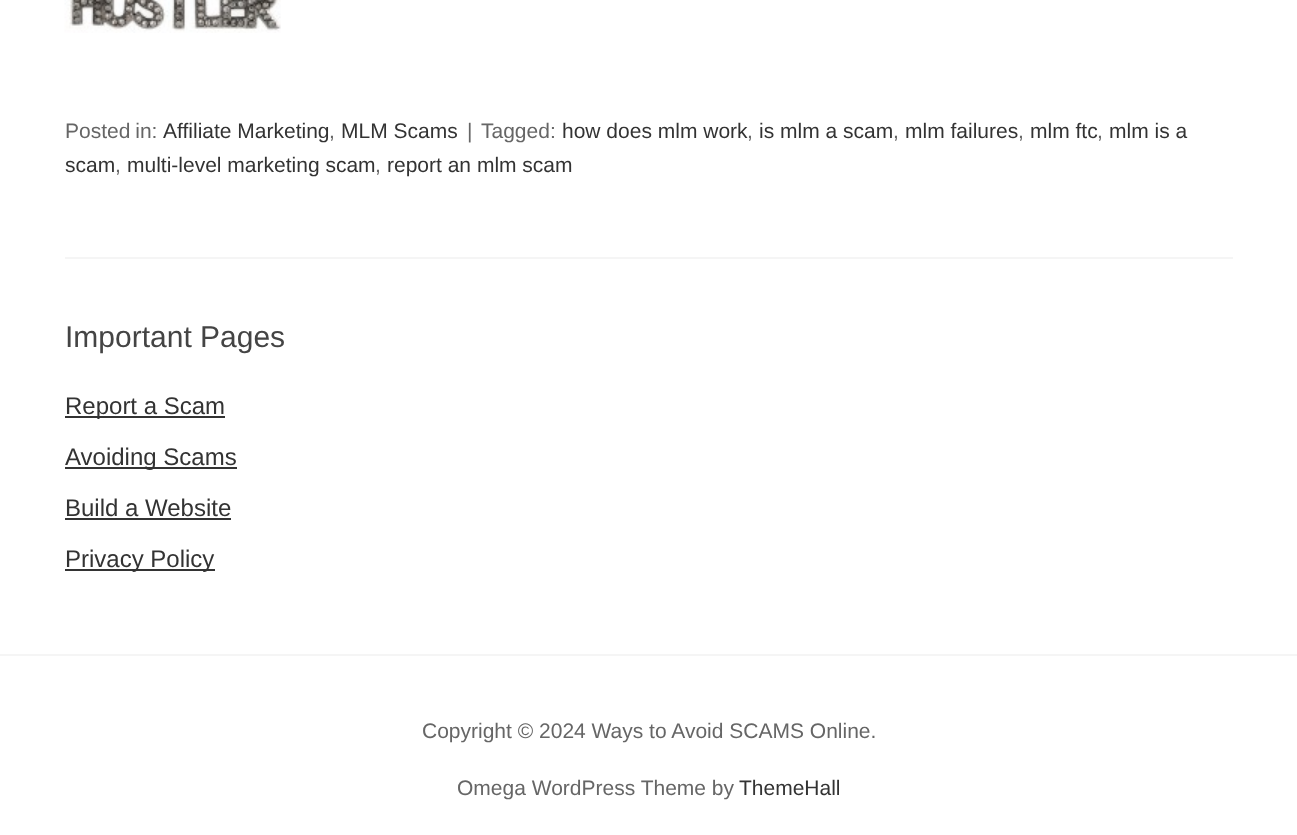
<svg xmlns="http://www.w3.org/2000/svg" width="1297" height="835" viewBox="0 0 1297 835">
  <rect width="100%" height="100%" fill="#fff"/>
  <image x="64" y="0" width="217" height="33" href="img/1.png"/>
  <path d="M65 257h1168v2H65z" fill="#f5f5f5"/>
  <path d="M65 416h160v2H65z" fill="#333"/>
  <path d="M65 467h172v2H65z" fill="#333"/>
  <path d="M65 518h166v2H65z" fill="#333"/>
  <path d="M65 569h150v2H65z" fill="#333"/>
  <path d="M0 654h1297v2H0z" fill="#f5f5f5"/>
  <text x="65" y="138" word-spacing="-1" font-family="Liberation Sans" font-size="21" fill="#666">Posted in:</text>
  <text x="163" y="138" font-family="Liberation Sans" font-size="21" fill="#333">Affiliate Marketing</text>
  <text x="329" y="138" font-family="Liberation Sans" font-size="21" fill="#666">,</text>
  <text x="341" y="138" font-family="Liberation Sans" font-size="21" fill="#333">MLM Scams</text>
  <g font-family="Liberation Sans" font-size="21" fill="#666">
    <text x="467" y="138">|</text>
    <text x="481" y="138">Tagged:</text>
  </g>
  <text x="562" y="138" font-family="Liberation Sans" font-size="21" fill="#333">how does mlm work</text>
  <text x="747" y="138" font-family="Liberation Sans" font-size="21" fill="#666">,</text>
  <text x="759" y="138" font-family="Liberation Sans" font-size="21" fill="#333">is mlm a scam</text>
  <text x="893" y="138" font-family="Liberation Sans" font-size="21" fill="#666">,</text>
  <text x="905" y="138" font-family="Liberation Sans" font-size="21" fill="#333">mlm failures</text>
  <text x="1018" y="138" font-family="Liberation Sans" font-size="21" fill="#666">,</text>
  <text x="1030" y="138" font-family="Liberation Sans" font-size="21" fill="#333">mlm ftc</text>
  <text x="1097" y="138" font-family="Liberation Sans" font-size="21" fill="#666">,</text>
  <g font-family="Liberation Sans" font-size="21" fill="#333">
    <text x="1109" y="138">mlm is a</text>
    <text x="65" y="172">scam</text>
  </g>
  <text x="115" y="172" font-family="Liberation Sans" font-size="21" fill="#666">,</text>
  <text x="127" y="172" font-family="Liberation Sans" font-size="21" fill="#333">multi-level marketing scam</text>
  <text x="375" y="172" font-family="Liberation Sans" font-size="21" fill="#666">,</text>
  <text x="387" y="172" font-family="Liberation Sans" font-size="21" fill="#333">report an mlm scam</text>
  <text x="65" y="347" font-family="Liberation Sans" font-size="30" fill="#444">Important Pages</text>
  <g font-family="Liberation Sans" font-size="24" fill="#333">
    <text x="65" y="414">Report a Scam</text>
    <text x="65" y="465">Avoiding Scams</text>
    <text x="65" y="516">Build a Website</text>
    <text x="65" y="567">Privacy Policy</text>
  </g>
  <g font-family="Liberation Sans" font-size="21" fill="#666">
    <text x="422" y="738">Copyright © 2024 Ways to Avoid SCAMS Online.</text>
    <text x="457" y="795">Omega WordPress Theme by</text>
  </g>
  <text x="739" y="795" font-family="Liberation Sans" font-size="21" fill="#333">ThemeHall</text>
</svg>
